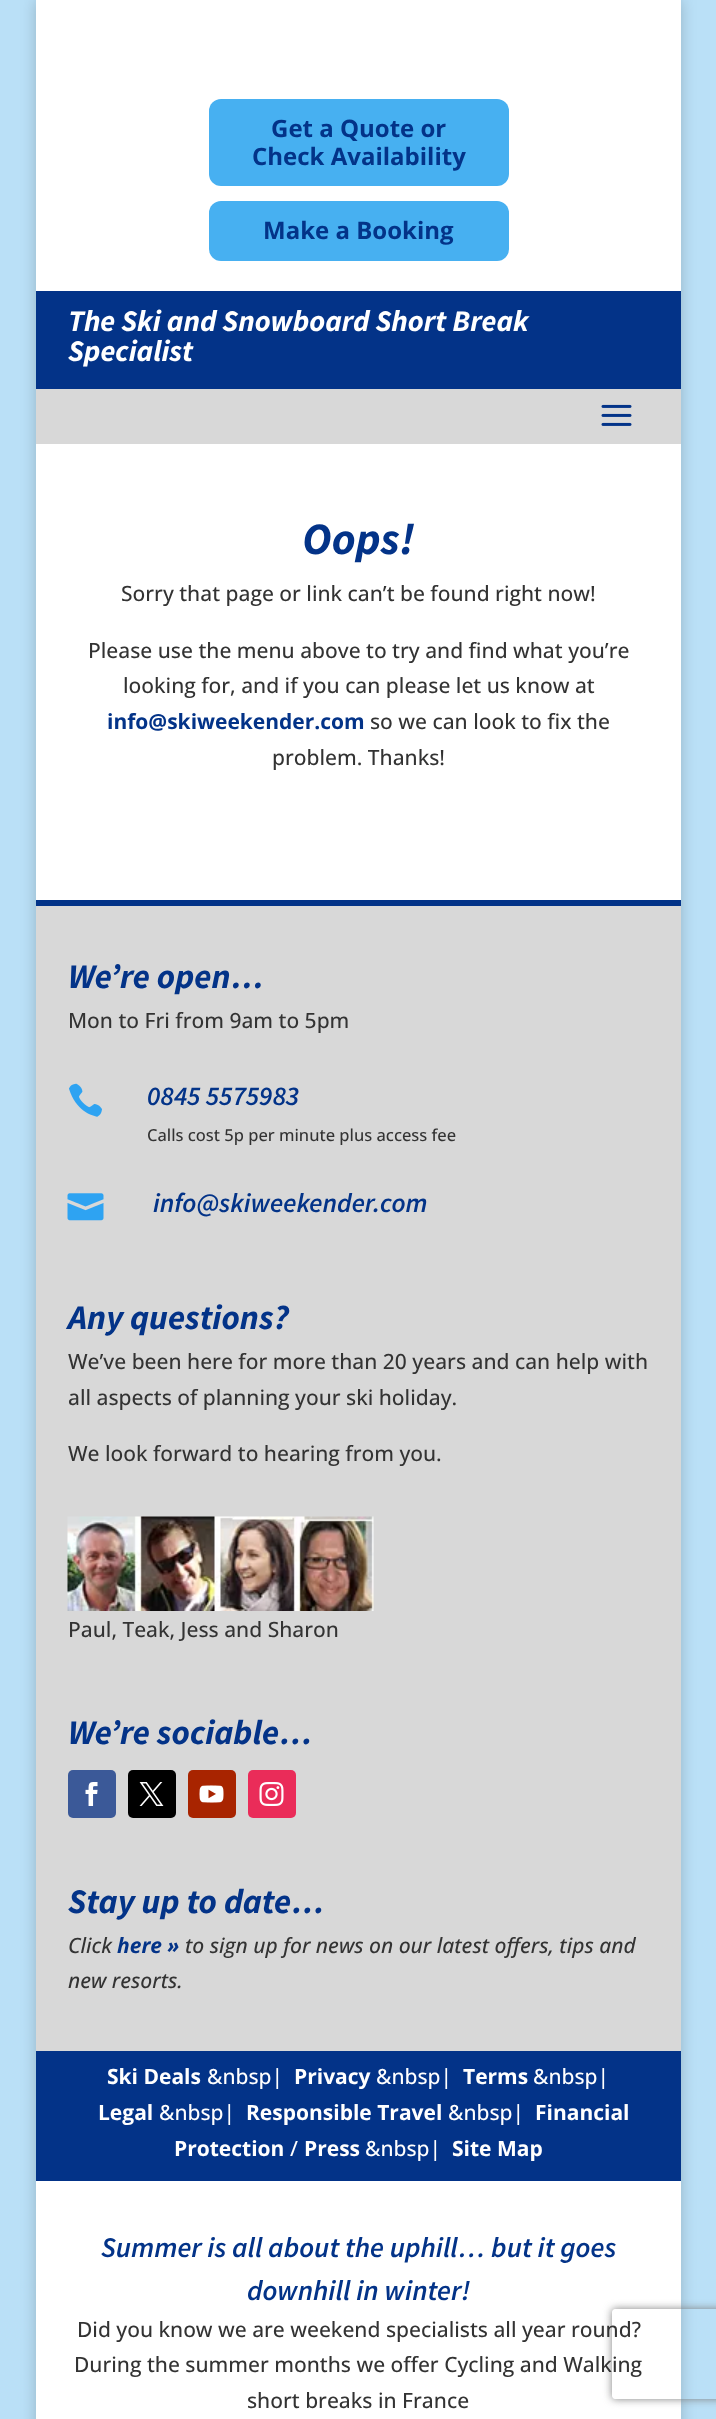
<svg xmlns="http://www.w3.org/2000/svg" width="716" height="2419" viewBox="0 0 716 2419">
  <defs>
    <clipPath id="clip1"><path d="M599 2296H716V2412H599ZM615 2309H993C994.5 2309 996 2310.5 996 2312V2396C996 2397.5 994.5 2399 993 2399H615C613.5 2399 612 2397.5 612 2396V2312C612 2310.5 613.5 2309 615 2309Z" clip-rule="evenodd"/></clipPath>
  </defs>
  <rect width="100%" height="100%" fill="#bae0f7"/>
  <path d="M36 0h645v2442H36z" fill="#00000033" filter="blur(7.5px)"/>
  <path d="M36 0h645v291H36z" fill="#fff"/>
  <rect x="209" y="99" width="300" height="87" rx="12" fill="#47b0f1"/>
  <rect x="209" y="201" width="300" height="60" rx="12" fill="#47b0f1"/>
  <path d="M36 291h645v98H36z" fill="#033388"/>
  <path d="M36 389h645v55H36z" fill="#d8d8d8"/>
  <image x="601" y="404" width="31" height="22" href="img/1.png"/>
  <path d="M36 444h645v456H36z" fill="#fff"/>
  <path d="M36 906h645v1145H36z" fill="#d8d8d8"/>
  <path d="M36 900h645v6H36z" fill="#033388"/>
  <image x="69" y="1083" width="33" height="34" href="img/2.png"/>
  <image x="67" y="1193" width="37" height="28" href="img/3.png"/>
  <image x="67" y="1516" width="307" height="95" href="img/4.png"/>
  <rect x="68" y="1770" width="48" height="48" rx="5" fill="#3b5998"/>
  <image x="85" y="1782" width="13" height="24" href="img/5.png"/>
  <rect x="128" y="1770" width="48" height="48" rx="5" fill="#000"/>
  <image x="139" y="1782" width="25" height="24" href="img/6.png"/>
  <rect x="188" y="1770" width="48" height="48" rx="5" fill="#a82400"/>
  <image x="199" y="1785" width="25" height="18" href="img/7.png"/>
  <rect x="248" y="1770" width="48" height="48" rx="5" fill="#ea2c59"/>
  <image x="259" y="1782" width="25" height="24" href="img/8.png"/>
  <path d="M36 2051h645v130H36z" fill="#033388"/>
  <path d="M36 2181h645v238H36z" fill="#fff"/>
  <g clip-path="url(#clip1)">
    <rect x="612" y="2309" width="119" height="90" rx="3" fill="#808080" filter="blur(4px)"/>
  </g>
  <g font-family="Open Sans" font-size="24" font-weight="bold" fill="#033388">
    <text x="271" y="137">Get a Quote or</text>
    <text x="252" y="165">Check Availability</text>
    <text x="263" y="239">Make a Booking</text>
  </g>
  <g font-family="Source Sans Pro" font-size="30" font-weight="bold" font-style="italic" fill="#fff">
    <text x="68" y="331">The Ski and Snowboard Short Break</text>
    <text x="68" y="361">Specialist</text>
  </g>
  <text x="302" y="554" font-family="Source Sans Pro" font-size="45" font-weight="bold" font-style="italic" fill="#033388">Oops!</text>
  <g font-family="Open Sans" font-size="21" font-weight="500" fill="#333">
    <text x="121" y="601">Sorry that page or link can’t be found right now!</text>
    <text x="88" y="658">Please use the menu above to try and find what you’re</text>
    <text x="123" y="693">looking for, and if you can please let us know at</text>
  </g>
  <text x="107" y="729" font-family="Open Sans" font-size="21" font-weight="bold" fill="#033388">info@skiweekender.com</text>
  <g font-family="Open Sans" font-size="21" font-weight="500" fill="#333">
    <text x="370" y="729">so we can look to fix the</text>
    <text x="272" y="765">problem. Thanks!</text>
  </g>
  <text x="68" y="988" font-family="Source Sans Pro" font-size="34.5" font-weight="bold" font-style="italic" fill="#033388">We’re open…</text>
  <text x="68" y="1028" font-family="Open Sans" font-size="21" font-weight="500" fill="#333">Mon to Fri from 9am to 5pm</text>
  <text x="147" y="1105" font-family="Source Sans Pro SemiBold" font-size="27" font-weight="600" font-style="italic" fill="#033388">0845 5575983</text>
  <text x="147" y="1141" font-family="Open Sans" font-size="16.5" font-weight="500" fill="#333">Calls cost 5p per minute plus access fee</text>
  <text x="153" y="1212" font-family="Source Sans Pro SemiBold" font-size="27" font-weight="600" font-style="italic" fill="#033388">info@skiweekender.com</text>
  <text x="68" y="1329" font-family="Source Sans Pro" font-size="34.5" font-weight="bold" font-style="italic" fill="#033388">Any questions?</text>
  <g font-family="Open Sans" font-size="21" font-weight="500" fill="#333">
    <text x="68" y="1369">We’ve been here for more than 20 years and can help with</text>
    <text x="68" y="1405">all aspects of planning your ski holiday.</text>
    <text x="68" y="1461">We look forward to hearing from you.</text>
    <text x="68" y="1637">Paul, Teak, Jess and Sharon</text>
  </g>
  <g font-family="Source Sans Pro" font-size="34.5" font-weight="bold" font-style="italic" fill="#033388">
    <text x="68" y="1744">We’re sociable…</text>
    <text x="68" y="1913">Stay up to date…</text>
  </g>
  <text x="68" y="1953" font-family="Open Sans" font-size="21" font-weight="500" font-style="italic" fill="#333">Click</text>
  <text x="117" y="1953" font-family="Open Sans" font-size="21" font-weight="bold" font-style="italic" fill="#033388">here »</text>
  <g font-family="Open Sans" font-size="21" font-weight="500" font-style="italic" fill="#333">
    <text x="185" y="1953">to sign up for news on our latest offers, tips and</text>
    <text x="68" y="1988">new resorts.</text>
  </g>
  <text x="107" y="2084" font-family="Open Sans" font-size="21" font-weight="bold" fill="#fff">Ski Deals</text>
  <text x="207" y="2084" font-family="Open Sans" font-size="21" font-weight="500" fill="#fff">&amp;nbsp|</text>
  <text x="294" y="2084" font-family="Open Sans" font-size="21" font-weight="bold" fill="#fff">Privacy</text>
  <text x="376" y="2084" font-family="Open Sans" font-size="21" font-weight="500" fill="#fff">&amp;nbsp|</text>
  <text x="463" y="2084" font-family="Open Sans" font-size="21" font-weight="bold" fill="#fff">Terms</text>
  <text x="533" y="2084" font-family="Open Sans" font-size="21" font-weight="500" fill="#fff">&amp;nbsp|</text>
  <text x="98" y="2120" font-family="Open Sans" font-size="21" font-weight="bold" fill="#fff">Legal</text>
  <text x="159" y="2120" font-family="Open Sans" font-size="21" font-weight="500" fill="#fff">&amp;nbsp|</text>
  <text x="246" y="2120" font-family="Open Sans" font-size="21" font-weight="bold" fill="#fff">Responsible Travel</text>
  <text x="448" y="2120" font-family="Open Sans" font-size="21" font-weight="500" fill="#fff">&amp;nbsp|</text>
  <g font-family="Open Sans" font-size="21" font-weight="bold" fill="#fff">
    <text x="535" y="2120">Financial</text>
    <text x="174" y="2156">Protection</text>
  </g>
  <text x="290" y="2156" font-family="Open Sans" font-size="21" font-weight="500" fill="#fff">/</text>
  <text x="304" y="2156" font-family="Open Sans" font-size="21" font-weight="bold" fill="#fff">Press</text>
  <text x="365" y="2156" font-family="Open Sans" font-size="21" font-weight="500" fill="#fff">&amp;nbsp|</text>
  <text x="452" y="2156" font-family="Open Sans" font-size="21" font-weight="bold" fill="#fff">Site Map</text>
  <g font-family="Source Sans Pro SemiBold" font-size="28.5" font-weight="600" font-style="italic" fill="#033388">
    <text x="101" y="2257">Summer is all about the uphill… but it goes</text>
    <text x="247" y="2300">downhill in winter!</text>
  </g>
  <g font-family="Open Sans" font-size="21" font-weight="500" fill="#333">
    <text x="77" y="2337">Did you know we are weekend specialists all year round?</text>
    <text x="74" y="2372">During the summer months we offer Cycling and Walking</text>
    <text x="247" y="2408">short breaks in France</text>
  </g>
</svg>
